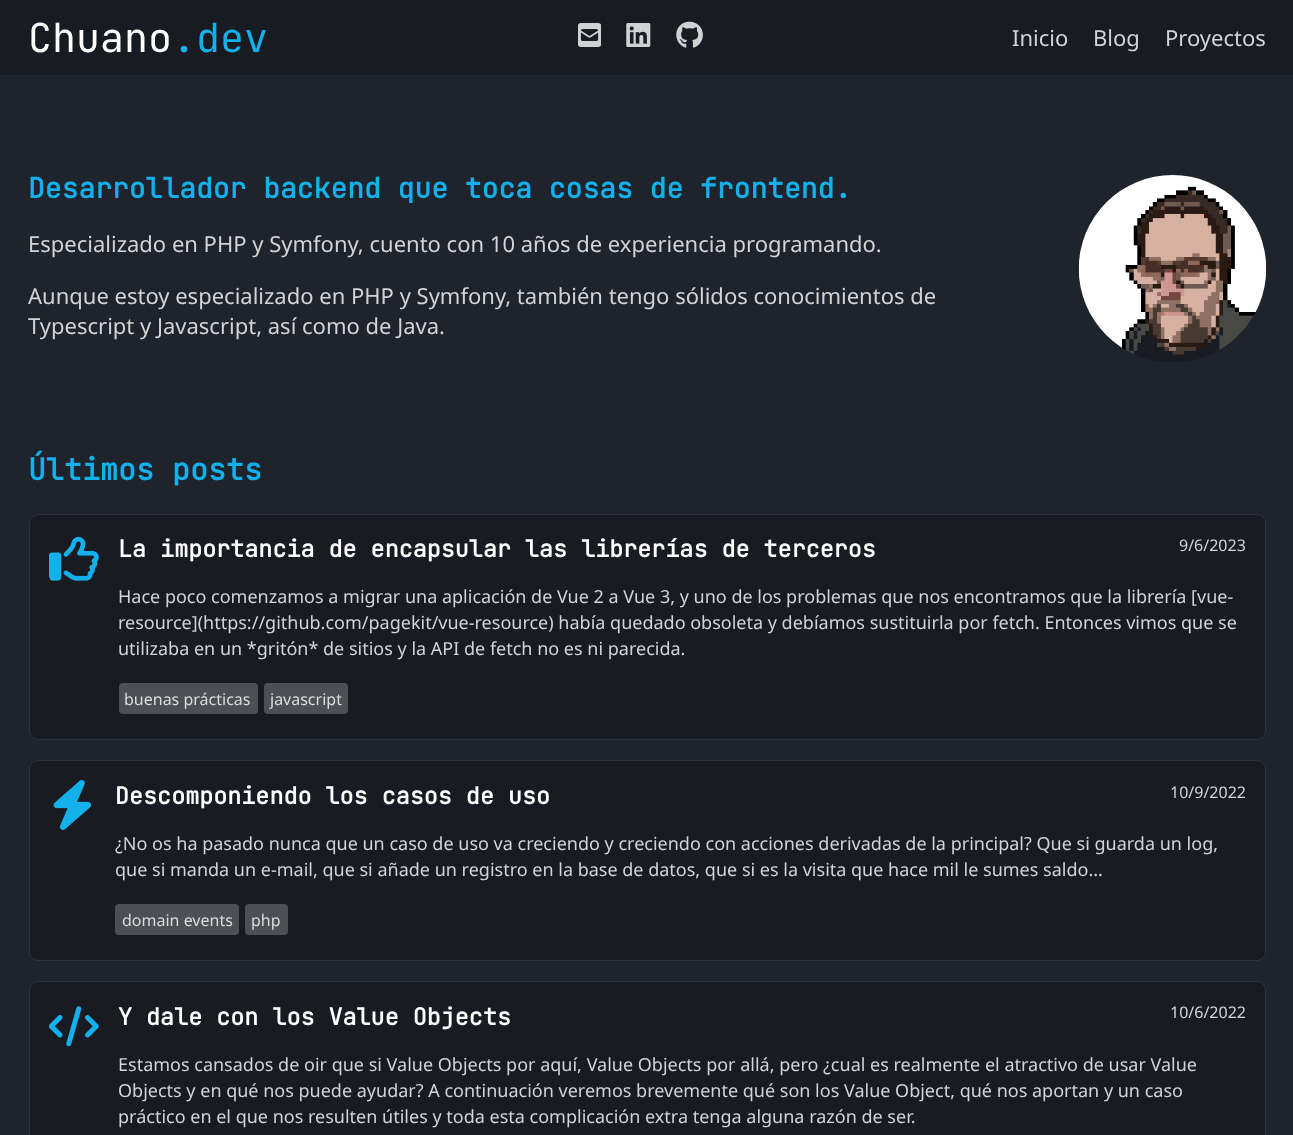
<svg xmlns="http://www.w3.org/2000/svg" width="1293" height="1135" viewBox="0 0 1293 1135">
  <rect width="100%" height="100%" fill="#1f232c"/>
  <path d="M0 0h1293v75H0z" fill="#181b22"/>
  <image x="578" y="23" width="23" height="24" href="img/1.png"/>
  <image x="626" y="23" width="25" height="24" href="img/2.png"/>
  <image x="676" y="21" width="27" height="27" href="img/3.png"/>
  <image x="1078" y="175" width="189" height="187" href="img/4.png"/>
  <rect x="29" y="514" width="1237" height="226" rx="9" fill="#181b22"/>
  <rect x="29.5" y="514.5" width="1236" height="225" rx="8.5" fill="none" stroke="#ffffff1a"/>
  <image x="49" y="536" width="50" height="45" href="img/5.png"/>
  <rect x="119" y="683" width="139" height="31" rx="4" fill="#4c4f54"/>
  <rect x="264" y="683" width="84" height="31" rx="4" fill="#4c4f54"/>
  <rect x="29" y="760" width="1237" height="201" rx="9" fill="#181b22"/>
  <rect x="29.5" y="760.5" width="1236" height="200" rx="8.5" fill="none" stroke="#ffffff1a"/>
  <image x="53" y="780" width="39" height="50" href="img/6.png"/>
  <rect x="115" y="904" width="124" height="31" rx="4" fill="#4c4f54"/>
  <rect x="245" y="904" width="43" height="31" rx="4" fill="#4c4f54"/>
  <rect x="29" y="981" width="1237" height="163" rx="9" fill="#181b22"/>
  <rect x="29.5" y="981.5" width="1236" height="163" rx="8.5" fill="none" stroke="#ffffff1a"/>
  <image x="49" y="1006" width="50" height="41" href="img/7.png"/>
  <text x="28" y="52" font-family="JetBrains Mono" font-size="40" fill="#fff">Chuano</text>
  <text x="172" y="52" font-family="JetBrains Mono" font-size="40" fill="#13b0ea">.dev</text>
  <g font-family="Noto Sans" font-size="22" fill="#d2d3d5">
    <text x="1012" y="46">Inicio</text>
    <text x="1093" y="46">Blog</text>
    <text x="1165" y="46">Proyectos</text>
  </g>
  <text x="28" y="198" font-family="JetBrains Mono" font-size="28" font-weight="bold" fill="#13b0ea">Desarrollador backend que toca cosas de frontend.</text>
  <g font-family="Noto Sans" font-size="22" fill="#d2d3d5">
    <text x="28" y="252">Especializado en PHP y Symfony, cuento con 10 años de experiencia programando.</text>
    <text x="28" y="304">Aunque estoy especializado en PHP y Symfony, también tengo sólidos conocimientos de</text>
    <text x="28" y="334">Typescript y Javascript, así como de Java.</text>
  </g>
  <text x="28" y="480" font-family="JetBrains Mono" font-size="30" font-weight="bold" fill="#13b0ea">Últimos posts</text>
  <text x="118" y="557" font-family="JetBrains Mono" font-size="23.4" font-weight="bold" fill="#fff">La importancia de encapsular las librerías de terceros</text>
  <text x="1179" y="551" font-family="Noto Sans" font-size="16" fill="#d2d3d5">9/6/2023</text>
  <g font-family="Noto Sans" font-size="18" fill="#d2d3d5">
    <text x="118" y="603">Hace poco comenzamos a migrar una aplicación de Vue 2 a Vue 3, y uno de los problemas que nos encontramos que la librería [vue-</text>
    <text x="118" y="629">resource](https://github.com/pagekit/vue-resource) había quedado obsoleta y debíamos sustituirla por fetch. Entonces vimos que se</text>
    <text x="118" y="655">utilizaba en un *gritón* de sitios y la API de fetch no es ni parecida.</text>
  </g>
  <g font-family="Noto Sans" font-size="16" fill="#dbdcdd">
    <text x="124" y="705">buenas prácticas</text>
    <text x="270" y="705">javascript</text>
  </g>
  <text x="115" y="804" font-family="JetBrains Mono" font-size="23.4" font-weight="bold" fill="#fff">Descomponiendo los casos de uso</text>
  <text x="1170" y="798" font-family="Noto Sans" font-size="16" fill="#d2d3d5">10/9/2022</text>
  <g font-family="Noto Sans" font-size="18" fill="#d2d3d5">
    <text x="115" y="850">¿No os ha pasado nunca que un caso de uso va creciendo y creciendo con acciones derivadas de la principal? Que si guarda un log,</text>
    <text x="115" y="876">que si manda un e-mail, que si añade un registro en la base de datos, que si es la visita que hace mil le sumes saldo...</text>
  </g>
  <g font-family="Noto Sans" font-size="16" fill="#dbdcdd">
    <text x="122" y="926">domain events</text>
    <text x="251" y="926">php</text>
  </g>
  <text x="118" y="1025" font-family="JetBrains Mono" font-size="23.4" font-weight="bold" fill="#fff">Y dale con los Value Objects</text>
  <text x="1170" y="1018" font-family="Noto Sans" font-size="16" fill="#d2d3d5">10/6/2022</text>
  <g font-family="Noto Sans" font-size="18" fill="#d2d3d5">
    <text x="118" y="1071">Estamos cansados de oir que si Value Objects por aquí, Value Objects por allá, pero ¿cual es realmente el atractivo de usar Value</text>
    <text x="118" y="1097">Objects y en qué nos puede ayudar? A continuación veremos brevemente qué son los Value Object, qué nos aportan y un caso</text>
    <text x="118" y="1123">práctico en el que nos resulten útiles y toda esta complicación extra tenga alguna razón de ser.</text>
  </g>
</svg>
